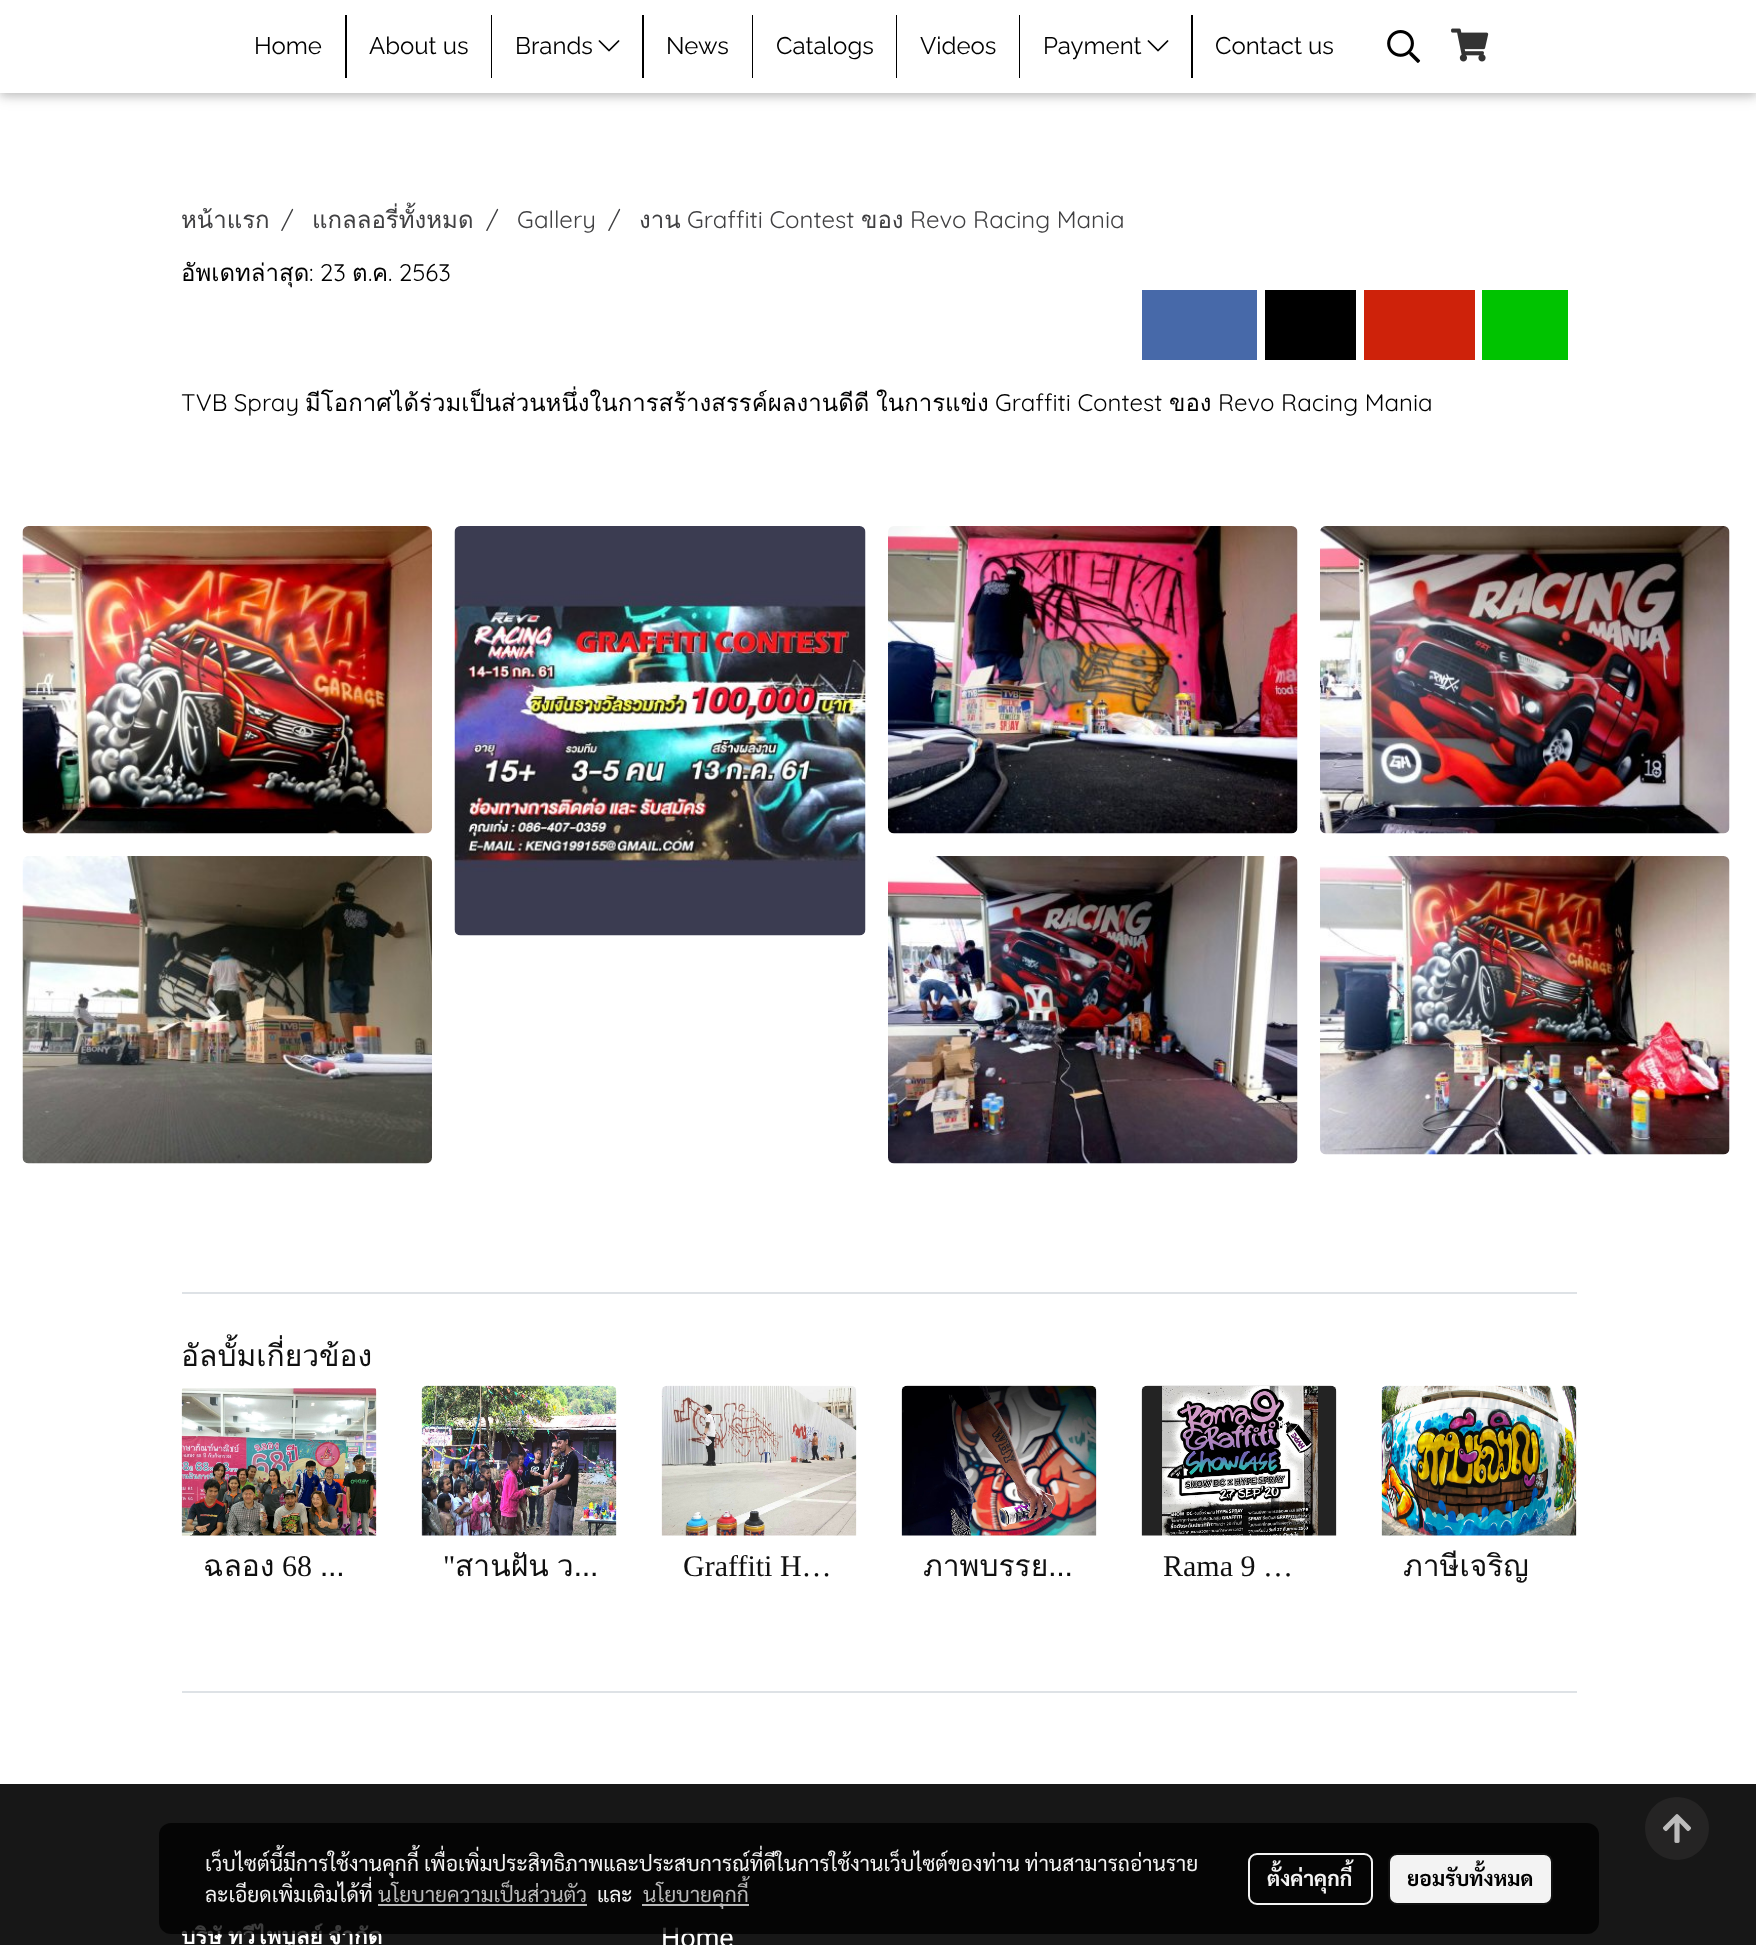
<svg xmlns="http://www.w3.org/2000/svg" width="1756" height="1945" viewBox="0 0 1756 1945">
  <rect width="100%" height="100%" fill="#fff"/>
  <path d="M0 3h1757v93H0z" fill="#0000001f" filter="blur(7.5px)"/>
  <path d="M0 3h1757v93H0z" fill="#00000029" filter="blur(4px)"/>
  <path d="M0 0h1756v93H0z" fill="#fff"/>
  <path d="M345 15h2v63H345z" fill="#000"/>
  <path d="M491 15h1v63H491z" fill="#000"/>
  <path d="M642 15h2v63H642z" fill="#000"/>
  <image x="598" y="40" width="22" height="12" href="img/1.png"/>
  <path d="M752 15h1v63H752z" fill="#000"/>
  <path d="M896 15h1v63H896z" fill="#000"/>
  <path d="M1019 15h1v63H1019z" fill="#000"/>
  <path d="M1191 15h2v63H1191z" fill="#000"/>
  <image x="1147" y="40" width="22" height="12" href="img/1.png"/>
  <image x="1387" y="30" width="34" height="33" href="img/2.png"/>
  <image x="1451" y="28" width="38" height="34" href="img/3.png"/>
  <path d="M1142 290h115v70H1142z" fill="#4769a9"/>
  <path d="M1265 290h91v70H1265z" fill="#000"/>
  <path d="M1364 290h111v70H1364z" fill="#ce220a"/>
  <path d="M1482 290h86v70H1482z" fill="#00c300"/>
  <image x="22" y="526" width="410" height="308" href="img/4.png"/>
  <image x="454" y="526" width="412" height="410" href="img/5.png"/>
  <image x="888" y="526" width="410" height="308" href="img/6.png"/>
  <image x="1320" y="526" width="410" height="308" href="img/7.png"/>
  <image x="22" y="856" width="410" height="308" href="img/8.png"/>
  <image x="888" y="856" width="410" height="308" href="img/9.png"/>
  <image x="1320" y="856" width="410" height="299" href="img/10.png"/>
  <path d="M182 1292h1395v2H182z" fill="#dee2e6"/>
  <image x="181" y="1388" width="196" height="148" href="img/11.png"/>
  <image x="421" y="1385" width="196" height="151" href="img/12.png"/>
  <image x="661" y="1385" width="196" height="151" href="img/13.png"/>
  <image x="901" y="1385" width="196" height="151" href="img/14.png"/>
  <image x="1141" y="1385" width="196" height="151" href="img/15.png"/>
  <image x="1381" y="1385" width="196" height="151" href="img/16.png"/>
  <path d="M182 1691h1395v2H182z" fill="#dee2e6"/>
  <path d="M0 1784h1756v161H0z" fill="#171717"/>
  <path d="M1677 1797C1659 1797 1645 1811 1645 1828C1645 1846 1659 1860 1677 1860C1695 1860 1709 1846 1709 1828C1709 1811 1695 1797 1677 1797Z" fill="#252424"/>
  <image x="1663" y="1814" width="28" height="29" href="img/17.png"/>
  <g font-family="Raleway" font-size="24" font-weight="100" fill="#000">
    <text x="254" y="54">Home</text>
    <text x="369" y="54">About us</text>
    <text x="515" y="54">Brands</text>
    <text x="666" y="54">News</text>
    <text x="776" y="54">Catalogs</text>
    <text x="920" y="54">Videos</text>
    <text x="1043" y="54">Payment</text>
    <text x="1215" y="54">Contact us</text>
  </g>
  <text x="181" y="228" font-family="Loma" font-size="24" fill="#404042">หน้าแรก</text>
  <text x="281" y="228" font-family="Quicksand" font-size="24" font-weight="300" fill="#404042">/</text>
  <text x="312" y="228" font-family="Loma" font-size="24" fill="#404042">แกลลอรี่ทั้งหมด</text>
  <g font-family="Quicksand" font-size="24" font-weight="300" fill="#404042">
    <text x="486" y="228">/</text>
    <text x="517" y="228">Gallery</text>
    <text x="608" y="228">/</text>
  </g>
  <text x="639" y="228" font-family="Loma" font-size="24" fill="#404042">งาน</text>
  <text x="687" y="228" font-family="Quicksand" font-size="24" font-weight="300" fill="#404042">Graffiti Contest</text>
  <text x="861" y="228" font-family="Loma" font-size="24" fill="#404042">ของ</text>
  <text x="910" y="228" font-family="Quicksand" font-size="24" font-weight="300" fill="#404042">Revo Racing Mania</text>
  <text x="181" y="281" font-family="Loma" font-size="24" fill="#000">อัพเดทล่าสุด</text>
  <text x="309" y="281" font-family="Quicksand" font-size="24" font-weight="300" fill="#000">: 23</text>
  <text x="352" y="281" font-family="Loma" font-size="24" fill="#000">ต</text>
  <text x="368" y="281" font-family="Quicksand" font-size="24" font-weight="300" fill="#000">.</text>
  <text x="372" y="281" font-family="Loma" font-size="24" fill="#000">ค</text>
  <g font-family="Quicksand" font-size="24" font-weight="300" fill="#000">
    <text x="388" y="281">. 2563</text>
    <text x="181" y="411">TVB Spray</text>
  </g>
  <g font-family="Loma" font-size="24" fill="#000">
    <text x="305" y="411">มีโอกาศได้ร่วมเป็นส่วนหนึ่งในการสร้างสรรค์ผลงานดีดี</text>
    <text x="876" y="411">ในการแข่ง</text>
  </g>
  <text x="995" y="411" font-family="Quicksand" font-size="24" font-weight="300" fill="#000">Graffiti Contest</text>
  <text x="1169" y="411" font-family="Loma" font-size="24" fill="#000">ของ</text>
  <text x="1218" y="411" font-family="Quicksand" font-size="24" font-weight="300" fill="#000">Revo Racing Mania</text>
  <g font-family="Loma" font-size="30" fill="#101010">
    <text x="181" y="1366">อัลบั้มเกี่ยวข้อง</text>
    <text x="203" y="1576">ฉลอง</text>
  </g>
  <text x="282" y="1576" font-family="Liberation Serif" font-size="30" fill="#101010">68</text>
  <text x="320" y="1576" font-family="Loma" font-size="30" fill="#101010">…</text>
  <text x="443" y="1576" font-family="Liberation Serif" font-size="30" fill="#101010">"</text>
  <text x="455" y="1576" word-spacing="-2" font-family="Loma" font-size="30" fill="#101010">สานฝัน ว…</text>
  <text x="683" y="1576" font-family="Liberation Serif" font-size="30" fill="#101010">Graffiti H…</text>
  <text x="923" y="1576" word-spacing="-1" font-family="Loma" font-size="30" fill="#101010">ภาพบรรย…</text>
  <text x="1163" y="1576" font-family="Liberation Serif" font-size="30" fill="#101010">Rama 9 …</text>
  <text x="1403" y="1576" font-family="Loma" font-size="30" fill="#101010">ภาษีเจริญ</text>
  <text x="181" y="1944" word-spacing="-2" font-family="Loma" font-size="22.5" font-weight="bold" fill="#fff">บริษั ทวีไพบูลย์ จำกัด</text>
  <text x="661" y="1947" font-family="Roboto" font-size="27" fill="#fff">Home</text>
  <rect x="159" y="1823" width="1440" height="111" rx="12" fill="#000000c2"/>
  <g font-family="Sarabun" font-size="21" fill="#f3f3f3">
    <text x="205" y="1871">เว็บไซต์นี้มีการใช้งานคุกกี้ เพื่อเพิ่มประสิทธิภาพและประสบการณ์ที่ดีในการใช้งานเว็บไซต์ของท่าน ท่านสามารถอ่านราย</text>
    <text x="205" y="1902">ละเอียดเพิ่มเติมได้ที่</text>
  </g>
  <text x="378" y="1902" font-family="Sarabun" font-size="21" fill="#b9b9b9">นโยบายความเป็นส่วนตัว</text>
  <path d="M378 1904h209v2H378z" fill="#b9b9b9"/>
  <text x="597" y="1902" font-family="Sarabun" font-size="21" fill="#f3f3f3">และ</text>
  <path d="M642 1904h107v2H642z" fill="#b9b9b9"/>
  <text x="643" y="1902" font-family="Sarabun" font-size="21" fill="#b9b9b9">นโยบายคุกกี้</text>
  <rect x="1249" y="1854" width="123" height="50" rx="8" fill="none" stroke="#f3f3f3" stroke-width="2"/>
  <text x="1267" y="1886" font-family="Sarabun" font-size="21" font-weight="bold" fill="#f3f3f3">ตั้งค่าคุกกี้</text>
  <rect x="1389" y="1854" width="163" height="50" rx="8" fill="#f3f3f3" stroke="#101010" stroke-width="2"/>
  <text x="1407" y="1886" font-family="Sarabun" font-size="21" font-weight="bold" fill="#000">ยอมรับทั้งหมด</text>
</svg>
